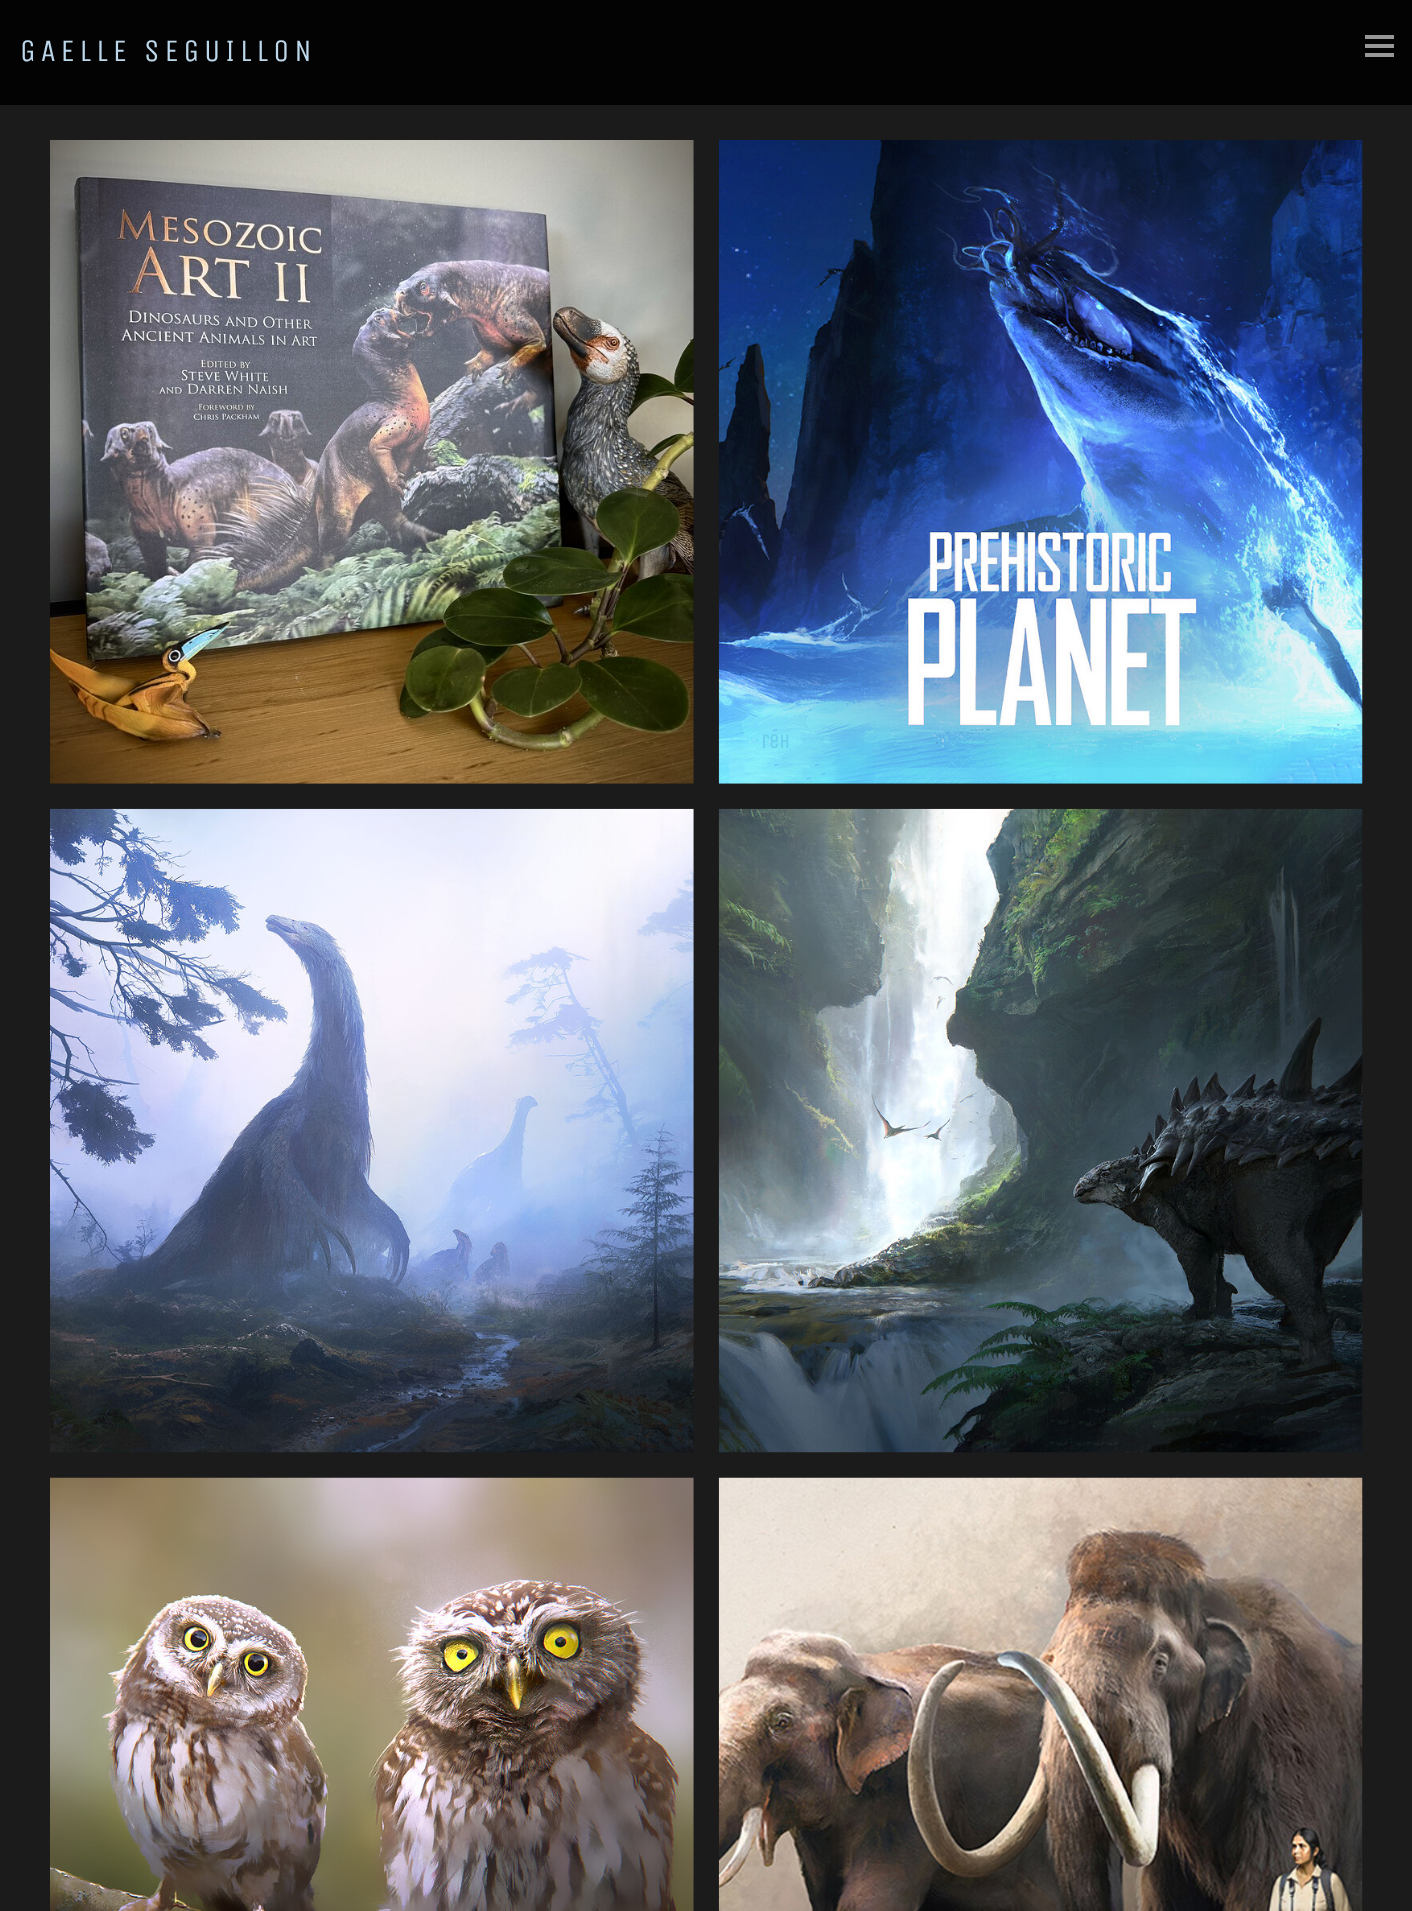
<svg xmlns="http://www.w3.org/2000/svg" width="1412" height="1911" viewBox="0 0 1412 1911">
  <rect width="100%" height="100%" fill="#1b1b1b"/>
  <path d="M0 0h1412v105H0z" fill="#030303"/>
  <path d="M1365 35h29v4H1365z" fill="#979797"/>
  <path d="M1365 44h29v4H1365z" fill="#979797"/>
  <path d="M1365 53h29v4H1365z" fill="#979797"/>
  <image x="50" y="140" width="644" height="644" href="img/1.png"/>
  <image x="718" y="140" width="645" height="644" href="img/2.png"/>
  <image x="50" y="808" width="644" height="645" href="img/3.png"/>
  <image x="718" y="808" width="645" height="645" href="img/4.png"/>
  <image x="50" y="1477" width="644" height="434" href="img/5.png"/>
  <image x="718" y="1477" width="645" height="434" href="img/6.png"/>
  <text x="20" y="61" font-family="Unica One" font-size="31.25" letter-spacing="5" fill="#bed8eb">GAELLE SEGUILLON</text>
  <text x="761" y="748" font-family="Unica One" font-size="20" font-weight="bold" fill="#6dceed">reh</text>
</svg>
